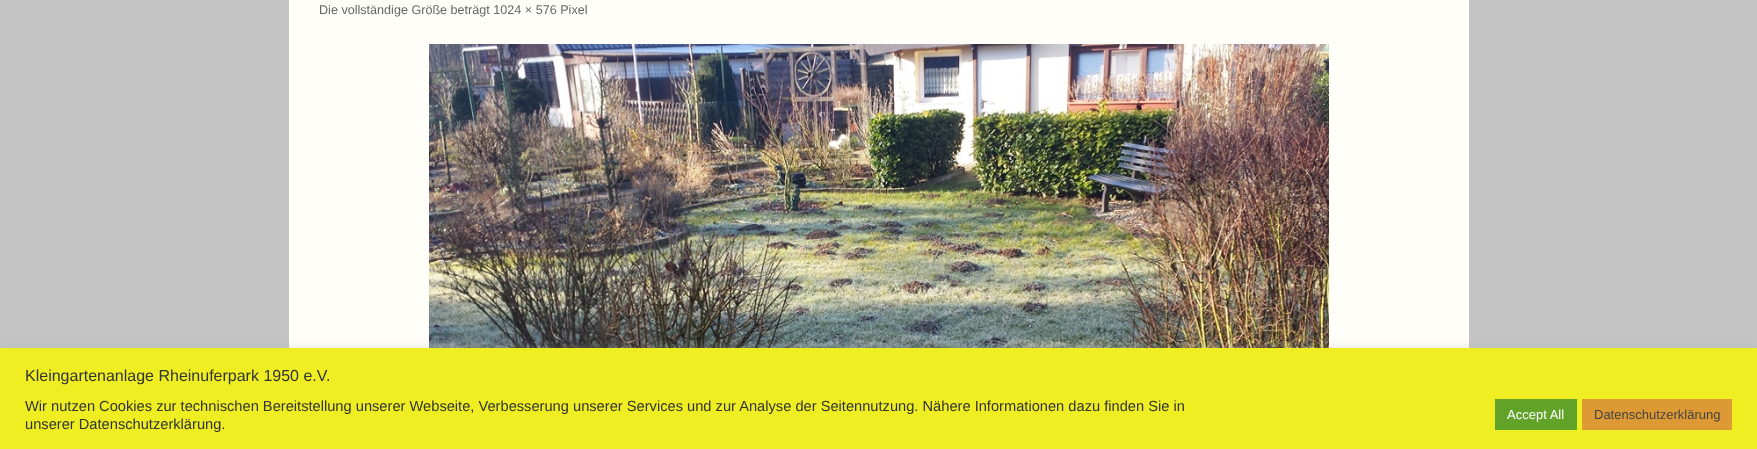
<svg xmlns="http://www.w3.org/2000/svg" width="1757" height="449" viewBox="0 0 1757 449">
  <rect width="100%" height="100%" fill="#c4c4c4"/>
  <path d="M289 0h1180v348H289z" fill="#fffef9"/>
  <image x="429" y="44" width="900" height="304" href="img/1.png"/>
  <path d="M0 347h1757v101H0z" fill="#acabab4d" filter="blur(5px)"/>
  <path d="M0 348h1757v101H0z" fill="#ee2"/>
  <path d="M1495 399h82v31H1495z" fill="#61a229"/>
  <path d="M1582 399h150v31H1582z" fill="#d93"/>
  <text x="319" y="14" font-family="Liberation Sans" font-size="12.6" fill="#666">Die vollständige Größe beträgt 1024 × 576 Pixel</text>
  <text x="25" y="381" font-family="Liberation Sans" font-size="16" fill="#333">Kleingartenanlage Rheinuferpark 1950 e.V.</text>
  <g font-family="Liberation Sans" font-size="14.67" fill="#333">
    <text x="25" y="411">Wir nutzen Cookies zur technischen Bereitstellung unserer Webseite, Verbesserung unserer Services und zur Analyse der Seitennutzung. Nähere Informationen dazu finden Sie in</text>
    <text x="25" y="429">unserer Datenschutzerklärung.</text>
  </g>
  <text x="1507" y="419" font-family="Liberation Sans" font-size="13" fill="#fff">Accept All</text>
  <text x="1594" y="419" font-family="Liberation Sans" font-size="13" fill="#444">Datenschutzerklärung</text>
</svg>
